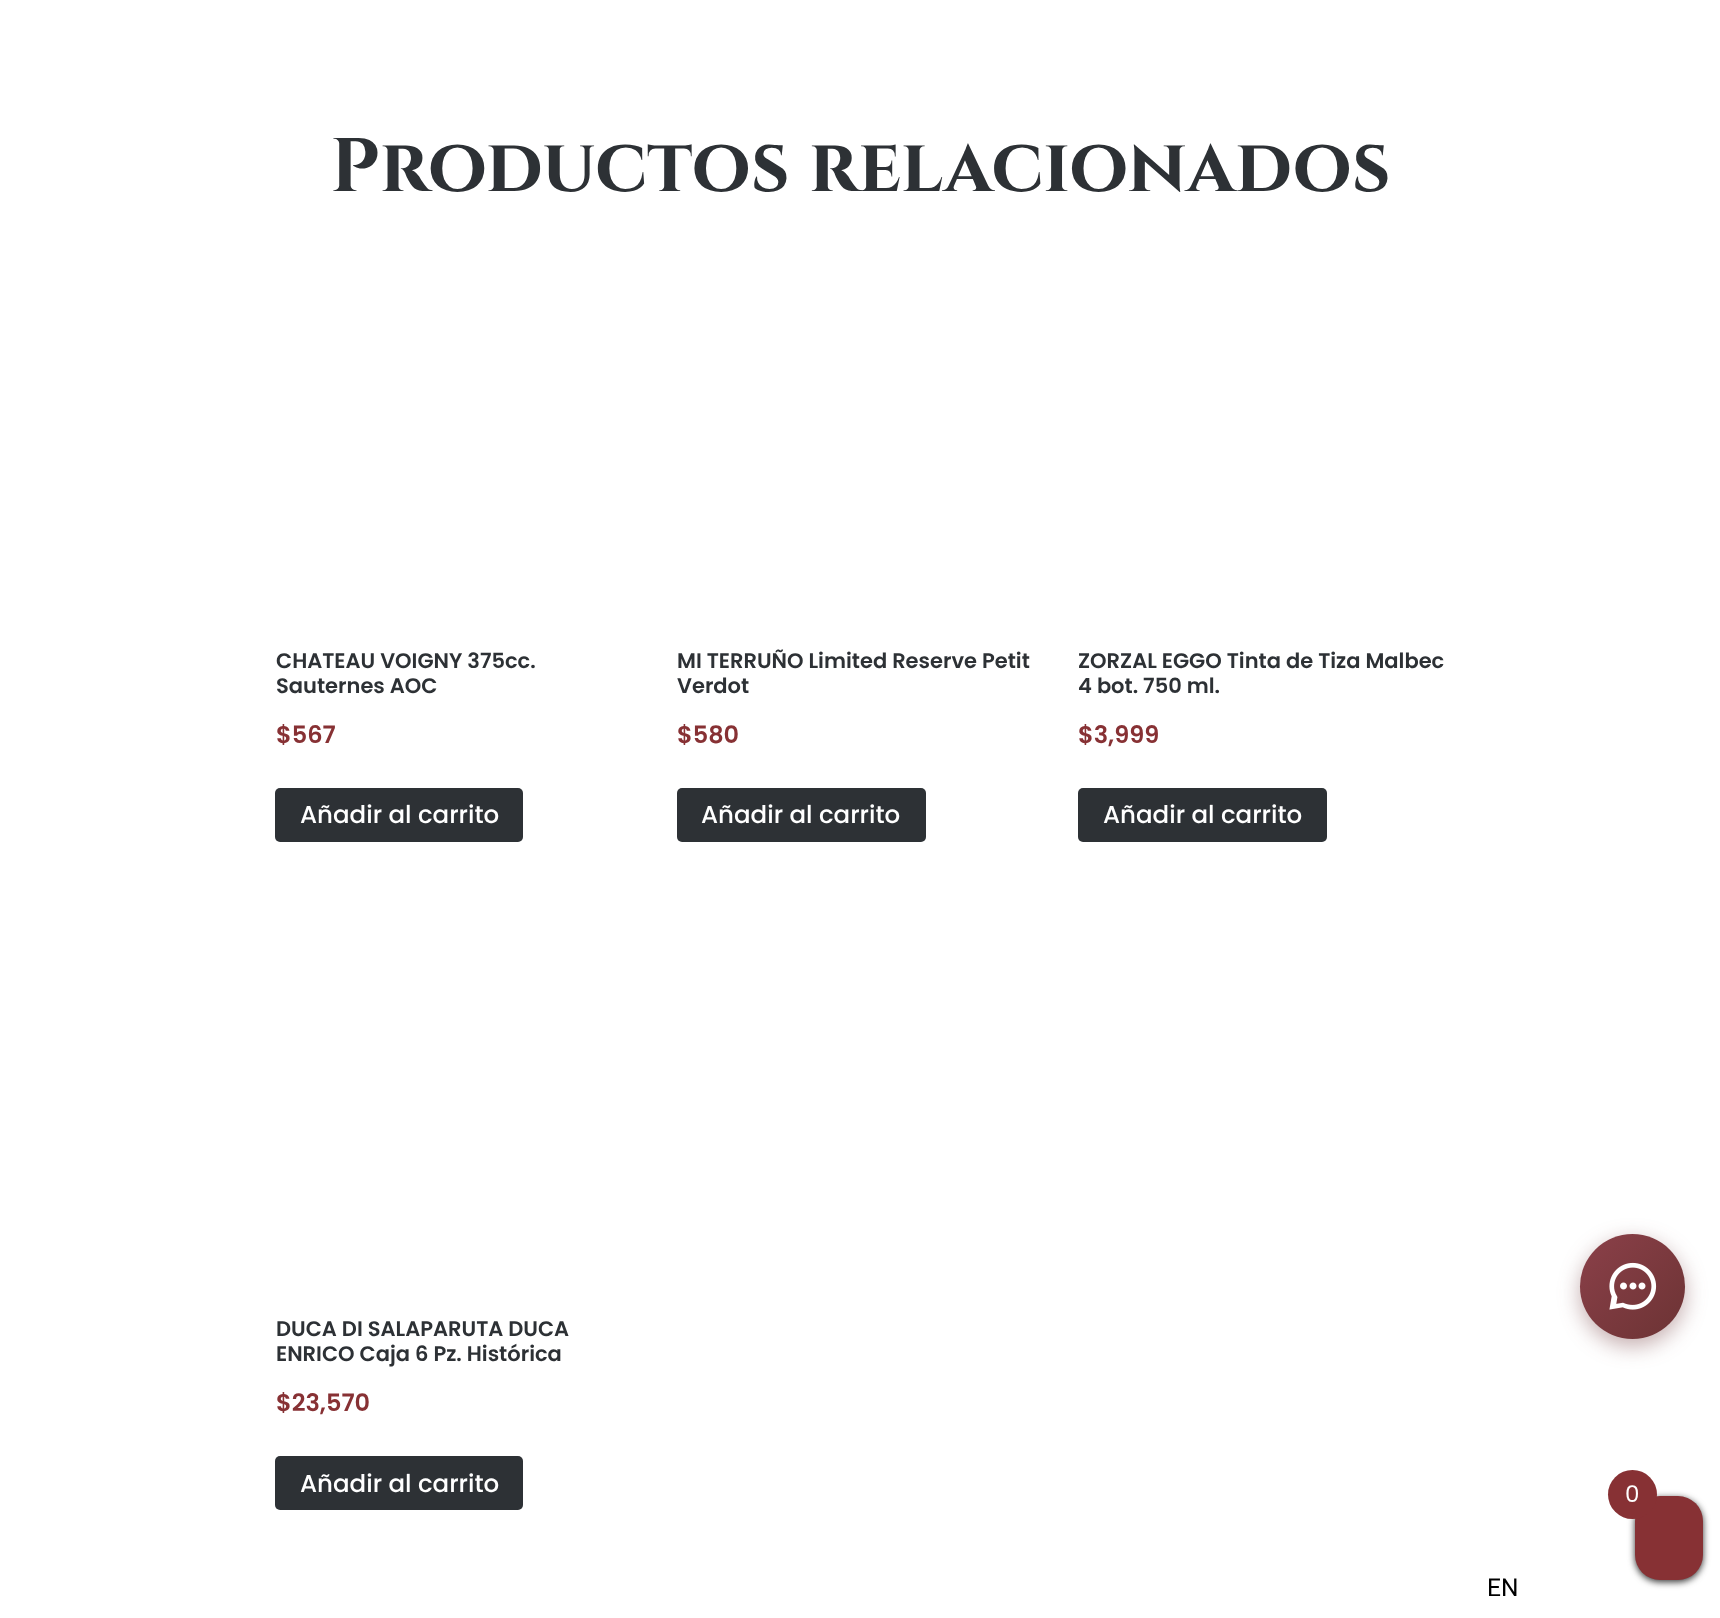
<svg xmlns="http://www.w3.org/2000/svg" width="1720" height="1618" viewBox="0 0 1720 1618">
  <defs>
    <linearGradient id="g1" gradientUnits="userSpaceOnUse" x1="1580" y1="1234" x2="1685" y2="1339"><stop offset="0" stop-color="#8b4049"/><stop offset="1" stop-color="#6c3334"/></linearGradient>
  </defs>
  <rect width="100%" height="100%" fill="#fff"/>
  <rect x="275" y="788" width="248" height="54" rx="5" fill="#2d3135"/>
  <rect x="677" y="788" width="249" height="54" rx="5" fill="#2d3135"/>
  <rect x="1078" y="788" width="249" height="54" rx="5" fill="#2d3135"/>
  <rect x="275" y="1456" width="248" height="54" rx="5" fill="#2d3135"/>
  <rect x="1580" y="1241" width="105" height="105" rx="52.5" fill="#6c333466" filter="blur(10.5px)"/>
  <circle cx="1632.5" cy="1286.5" r="52.5" fill="url(#g1)"/>
  <image x="1609" y="1262" width="48" height="48" href="img/1.png"/>
  <rect x="1635" y="1498" width="68" height="84" rx="25" fill="#333" filter="blur(3.5px)"/>
  <rect x="1635" y="1496" width="68" height="84" rx="25" fill="#873134"/>
  <circle cx="1632.5" cy="1494.5" r="24.5" fill="#873134"/>
  <text x="330" y="191" font-family="Cinzel" font-size="75.75" font-weight="bold" fill="#2d3135">Productos relacionados</text>
  <g font-family="Poppins" font-size="21" font-weight="600" fill="#2d3135">
    <text x="276" y="668">CHATEAU VOIGNY 375cc.</text>
    <text x="276" y="693">Sauternes AOC</text>
  </g>
  <text x="276" y="743" font-family="Poppins" font-size="24" font-weight="600" fill="#873134">$567</text>
  <text x="300" y="823" font-family="Poppins" font-size="24.5" font-weight="500" fill="#fff">Añadir al carrito</text>
  <g font-family="Poppins" font-size="21" font-weight="600" fill="#2d3135">
    <text x="677" y="668">MI TERRUÑO Limited Reserve Petit</text>
    <text x="677" y="693">Verdot</text>
  </g>
  <text x="677" y="743" font-family="Poppins" font-size="24" font-weight="600" fill="#873134">$580</text>
  <text x="701" y="823" font-family="Poppins" font-size="24.5" font-weight="500" fill="#fff">Añadir al carrito</text>
  <g font-family="Poppins" font-size="21" font-weight="600" fill="#2d3135">
    <text x="1078" y="668">ZORZAL EGGO Tinta de Tiza Malbec</text>
    <text x="1078" y="693">4 bot. 750 ml.</text>
  </g>
  <text x="1078" y="743" font-family="Poppins" font-size="24" font-weight="600" fill="#873134">$3,999</text>
  <text x="1103" y="823" font-family="Poppins" font-size="24.5" font-weight="500" fill="#fff">Añadir al carrito</text>
  <g font-family="Poppins" font-size="21" font-weight="600" fill="#2d3135">
    <text x="276" y="1336">DUCA DI SALAPARUTA DUCA</text>
    <text x="276" y="1361">ENRICO Caja 6 Pz. Histórica</text>
  </g>
  <text x="276" y="1411" font-family="Poppins" font-size="24" font-weight="600" fill="#873134">$23,570</text>
  <text x="300" y="1492" font-family="Poppins" font-size="24.5" font-weight="500" fill="#fff">Añadir al carrito</text>
  <text x="1625" y="1502" font-family="Poppins" font-size="23" fill="#fff">0</text>
  <text x="1487" y="1596" font-family="Roboto" font-size="24.5" fill="#000">EN</text>
</svg>
